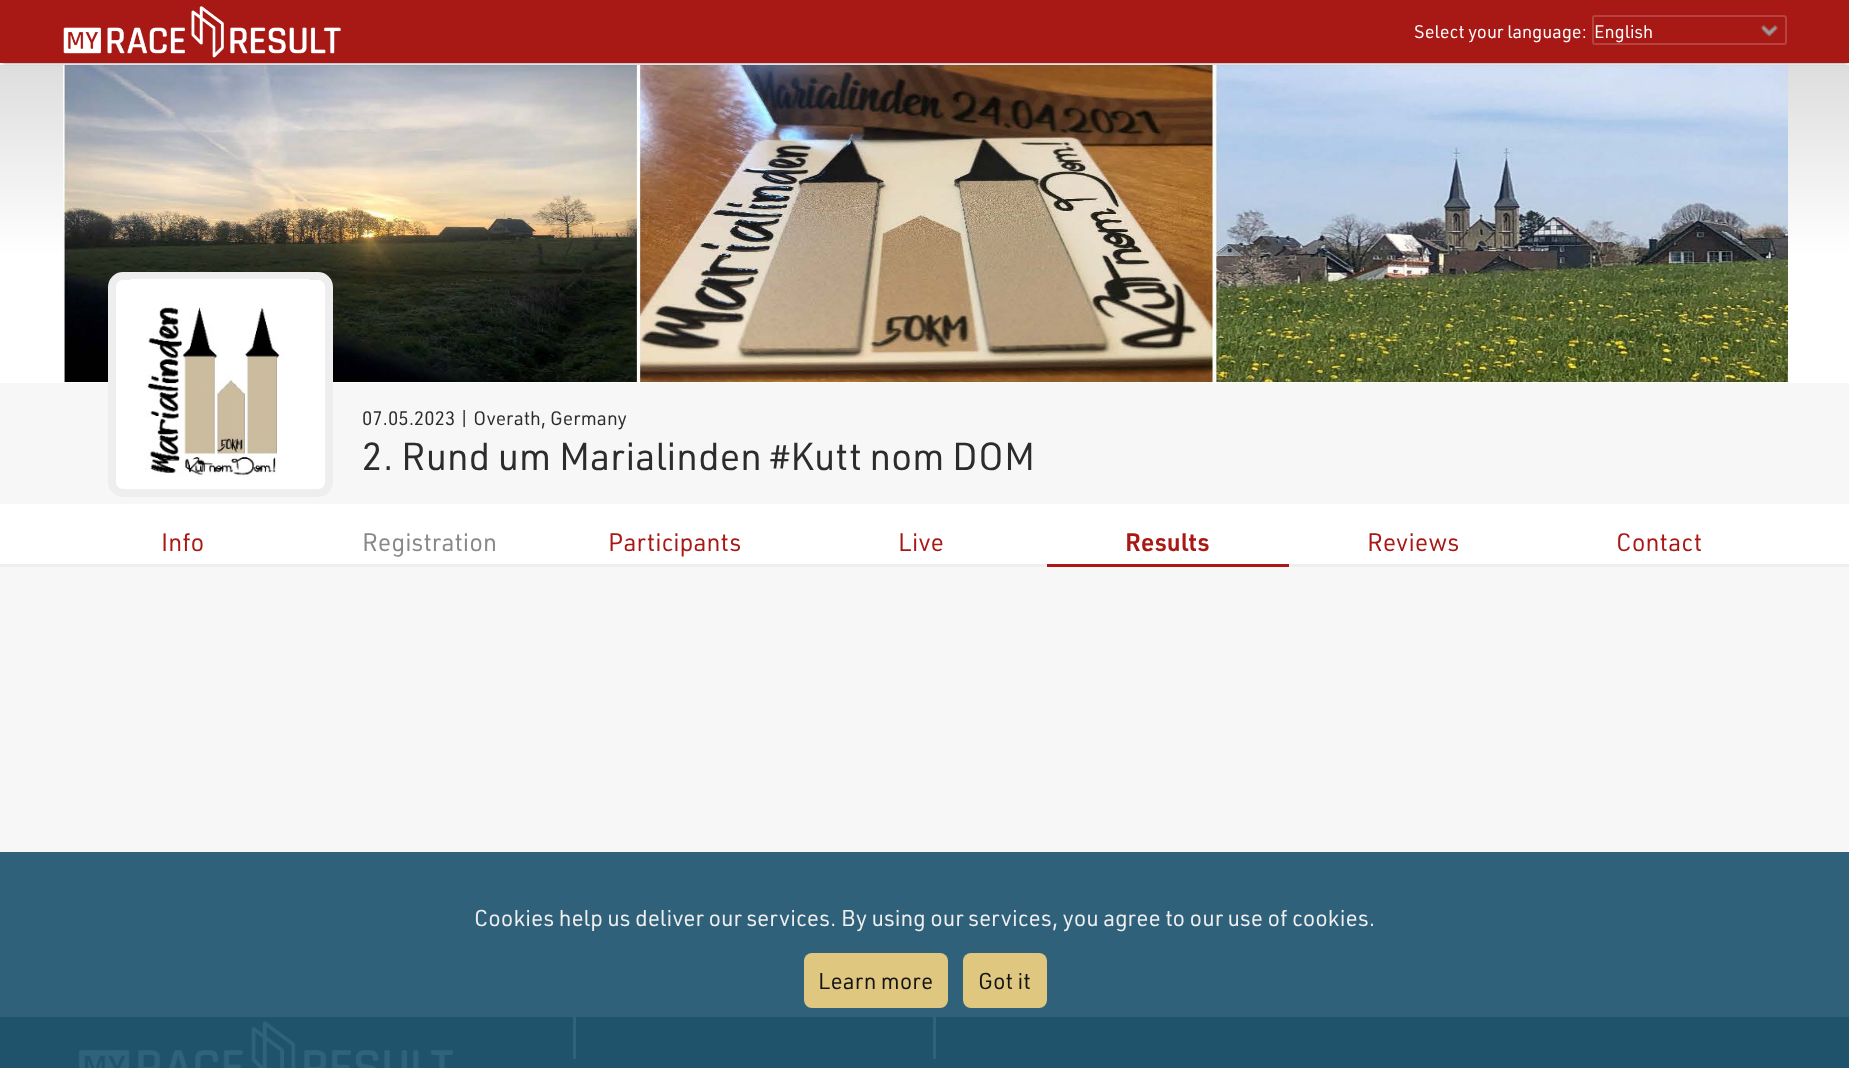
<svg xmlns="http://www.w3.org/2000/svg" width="1849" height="1068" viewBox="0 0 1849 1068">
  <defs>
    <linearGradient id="g1" gradientUnits="userSpaceOnUse" x1="925" y1="383" x2="925" y2="65"><stop offset="0.4" stop-color="#fff"/><stop offset="1" stop-color="#ddd"/></linearGradient>
  </defs>
  <rect width="100%" height="100%" fill="#f7f7f7"/>
  <path d="M0 65h1849v318H0z" fill="url(#g1)"/>
  <image x="63" y="65" width="1725" height="318" href="img/3.png"/>
  <path d="M3 6h1844v57H3z" fill="#00000085" filter="blur(1.5px)"/>
  <path d="M0 0h1849v63H0z" fill="#a81815"/>
  <image x="63" y="6" width="278" height="52" href="img/1.png"/>
  <image x="1760" y="25" width="18" height="12" href="img/2.png"/>
  <rect x="1593" y="16" width="193" height="28" rx="2" fill="none" stroke="#b74340" stroke-width="2"/>
  <rect x="112" y="276" width="217" height="217" rx="11" fill="#fff" stroke="#eee" stroke-width="8"/>
  <image x="130" y="279" width="179" height="197" href="img/4.png"/>
  <path d="M0 504h1849v60H0z" fill="#fff"/>
  <path d="M0 564h1849v3H0z" fill="#eee"/>
  <path d="M1047 564h242v3H1047z" fill="#a81815"/>
  <path d="M0 852h1849v165H0z" fill="#2f617a"/>
  <rect x="804" y="953" width="144" height="55" rx="8" fill="#dfc77f"/>
  <rect x="963" y="953" width="84" height="55" rx="8" fill="#dfc77f"/>
  <path d="M0 1017h1849v51H0z" fill="#1f526b"/>
  <image x="78" y="1021" width="375" height="47" href="img/5.png"/>
  <path d="M573 1017h3v42H573z" fill="#2f627b"/>
  <path d="M933 1017h3v42H933z" fill="#2f627b"/>
  <g font-family="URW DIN" font-size="18" fill="#fff">
    <text x="1414" y="38">Select your language:</text>
    <text x="1594" y="38">English</text>
  </g>
  <text x="362" y="425" font-family="URW DIN" font-size="19.1" fill="#2c2c2c">07.05.2023 | Overath, Germany</text>
  <text x="362" y="470" font-family="URW DIN" font-size="38.25" fill="#2c2c2c">2. Rund um Marialinden #Kutt nom DOM</text>
  <text x="161" y="551" font-family="URW DIN" font-size="24.75" fill="#a81815">Info</text>
  <text x="362" y="551" font-family="URW DIN" font-size="24.75" fill="#888">Registration</text>
  <g font-family="URW DIN" font-size="24.75" fill="#a81815">
    <text x="608" y="551">Participants</text>
    <text x="898" y="551">Live</text>
  </g>
  <text x="1125" y="551" font-family="URW DIN" font-size="24.75" font-weight="600" fill="#a81815">Results</text>
  <g font-family="URW DIN" font-size="24.75" fill="#a81815">
    <text x="1367" y="551">Reviews</text>
    <text x="1616" y="551">Contact</text>
  </g>
  <text x="474" y="926" font-family="URW DIN" font-size="22.5" fill="#efefef">Cookies help us deliver our services. By using our services, you agree to our use of cookies.</text>
  <g font-family="URW DIN" font-size="22.5" fill="#141414">
    <text x="818" y="989">Learn more</text>
    <text x="978" y="989">Got it</text>
  </g>
</svg>
